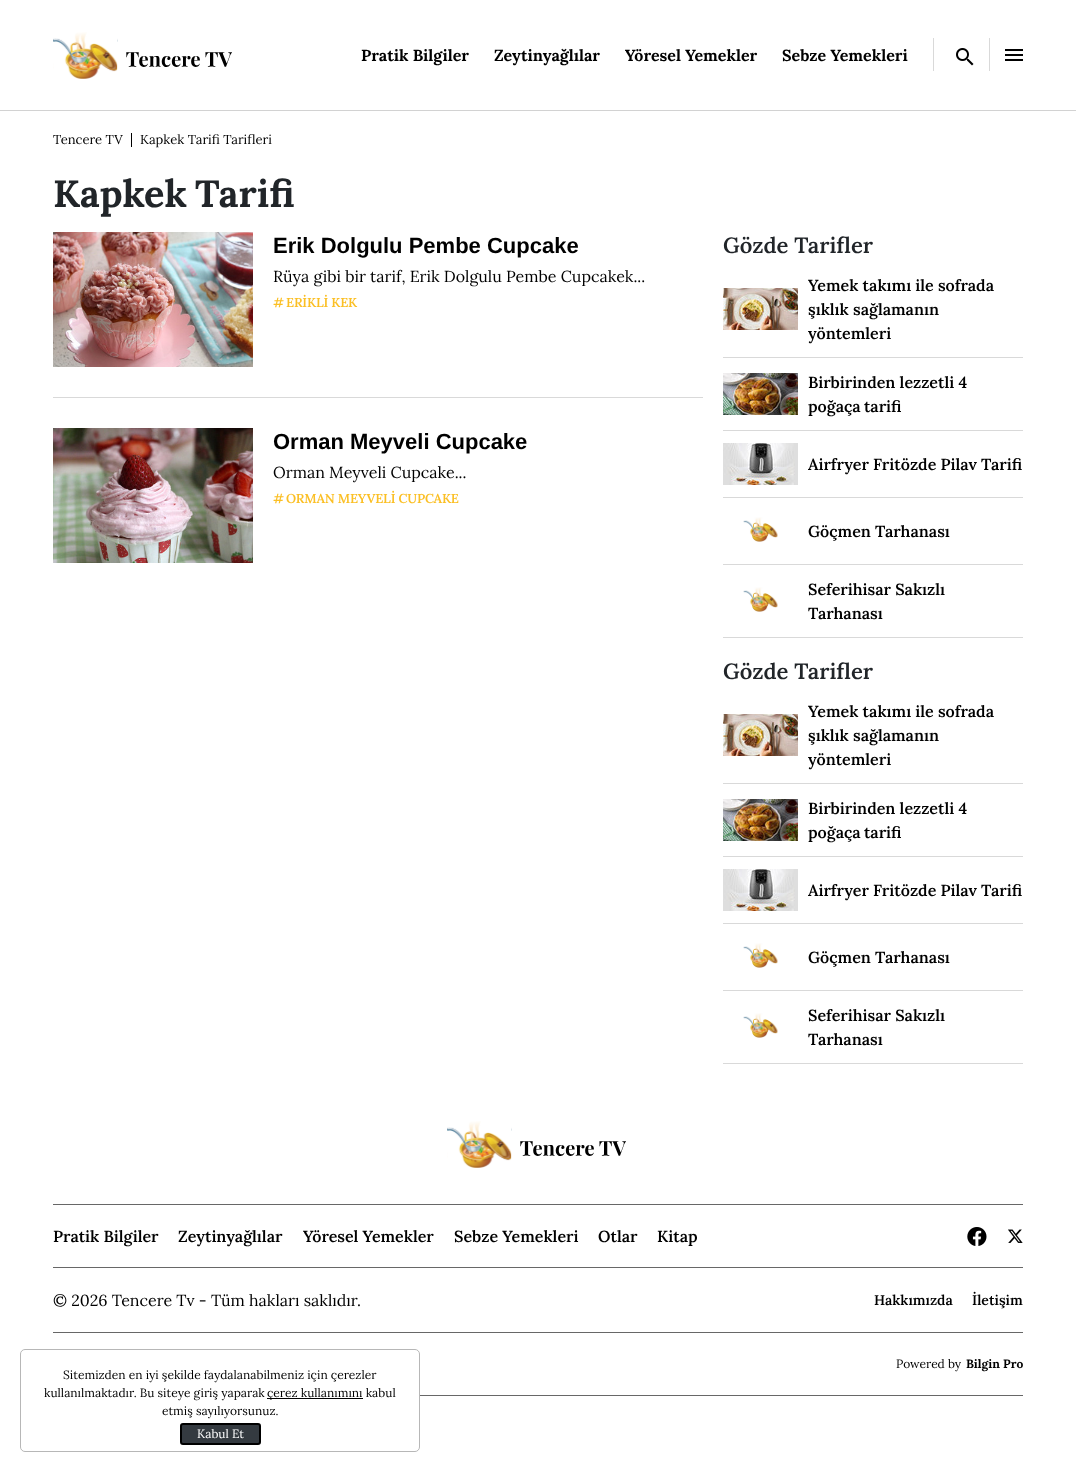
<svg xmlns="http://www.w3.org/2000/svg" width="1076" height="1472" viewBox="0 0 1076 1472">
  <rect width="100%" height="100%" fill="#fff"/>
  <path d="M0 110h1076v1H0z" fill="#d2d2d2"/>
  <image x="53" y="32" width="179" height="47" href="img/1.png"/>
  <path d="M933 38h1v33H933z" fill="#d9d9d9"/>
  <image x="956" y="48" width="18" height="18" href="img/2.png"/>
  <path d="M989 38h1v33H989z" fill="#d9d9d9"/>
  <image x="1005" y="49" width="18" height="12" href="img/3.png"/>
  <path d="M131 133h1v14H131z" fill="#000"/>
  <path d="M53 397h650v1H53z" fill="#d9d9d9"/>
  <image x="53" y="232" width="200" height="135" href="img/4.png"/>
  <image x="53" y="428" width="200" height="135" href="img/5.png"/>
  <path d="M723 357h300v1H723z" fill="#d9d9d9"/>
  <image x="723" y="288" width="75" height="42" href="img/6.png"/>
  <path d="M723 430h300v1H723z" fill="#d9d9d9"/>
  <image x="723" y="373" width="75" height="42" href="img/7.png"/>
  <path d="M723 497h300v1H723z" fill="#d9d9d9"/>
  <image x="723" y="443" width="75" height="42" href="img/8.png"/>
  <path d="M723 564h300v1H723z" fill="#d9d9d9"/>
  <image x="743" y="517" width="35" height="25" href="img/9.png"/>
  <path d="M723 637h300v1H723z" fill="#d9d9d9"/>
  <image x="743" y="587" width="35" height="25" href="img/9.png"/>
  <path d="M723 783h300v1H723z" fill="#d9d9d9"/>
  <image x="723" y="714" width="75" height="42" href="img/6.png"/>
  <path d="M723 856h300v1H723z" fill="#d9d9d9"/>
  <image x="723" y="799" width="75" height="42" href="img/7.png"/>
  <path d="M723 923h300v1H723z" fill="#d9d9d9"/>
  <image x="723" y="869" width="75" height="42" href="img/8.png"/>
  <path d="M723 990h300v1H723z" fill="#d9d9d9"/>
  <image x="743" y="943" width="35" height="25" href="img/9.png"/>
  <path d="M723 1063h300v1H723z" fill="#d9d9d9"/>
  <image x="743" y="1013" width="35" height="25" href="img/9.png"/>
  <path d="M53 1204h970v1H53z" fill="#676767"/>
  <image x="447" y="1121" width="179" height="47" href="img/1.png"/>
  <path d="M53 1267h970v1H53z" fill="#676767"/>
  <image x="967" y="1227" width="20" height="19" href="img/10.png"/>
  <image x="1008" y="1229" width="15" height="14" href="img/11.png"/>
  <path d="M53 1332h970v1H53z" fill="#676767"/>
  <path d="M420 1395h603v1H420z" fill="#676767"/>
  <rect x="20.5" y="1349.5" width="399" height="102" rx="4.5" fill="none" stroke="#b7b7b7"/>
  <path d="M267 1398h96v1H267z" fill="#000"/>
  <rect x="181" y="1424" width="79" height="20" rx="2" fill="#343a40" stroke="#000" stroke-width="2"/>
  <g font-family="Lora" font-size="16" font-weight="bold" fill="#000">
    <text x="361" y="61">Pratik Bilgiler</text>
    <text x="494" y="61">Zeytinyağlılar</text>
    <text x="625" y="61">Yöresel Yemekler</text>
    <text x="782" y="61">Sebze Yemekleri</text>
  </g>
  <g font-family="Lora" font-size="13" fill="#000">
    <text x="53" y="144">Tencere TV</text>
    <text x="140" y="144">Kapkek Tarifi Tarifleri</text>
  </g>
  <text x="53" y="207" word-spacing="-2" font-family="Lora" font-size="38" font-weight="bold" fill="#212529">Kapkek Tarifi</text>
  <text x="273" y="253" font-family="Liberation Sans" font-size="22" font-weight="bold" fill="#000">Erik Dolgulu Pembe Cupcake</text>
  <text x="273" y="282" font-family="Lora" font-size="16" fill="#000">Rüya gibi bir tarif, Erik Dolgulu Pembe Cupcakek...</text>
  <g font-family="Lora" font-size="13" font-weight="600" letter-spacing="-0.2" fill="#fbbf24">
    <text x="273" y="307">#</text>
    <text x="286" y="307">ERİKLİ KEK</text>
  </g>
  <text x="273" y="449" font-family="Liberation Sans" font-size="22" font-weight="bold" fill="#000">Orman Meyveli Cupcake</text>
  <text x="273" y="478" font-family="Lora" font-size="16" fill="#000">Orman Meyveli Cupcake...</text>
  <g font-family="Lora" font-size="13" font-weight="600" letter-spacing="-0.2" fill="#fbbf24">
    <text x="273" y="503">#</text>
    <text x="286" y="503">ORMAN MEYVELİ CUPCAKE</text>
  </g>
  <text x="723" y="253" font-family="Lora" font-size="22" font-weight="600" fill="#212529">Gözde Tarifler</text>
  <g font-family="Lora" font-size="16" font-weight="600" fill="#000">
    <text x="808" y="291">Yemek takımı ile sofrada</text>
    <text x="808" y="315">şıklık sağlamanın</text>
    <text x="808" y="339">yöntemleri</text>
    <text x="808" y="388">Birbirinden lezzetli 4</text>
    <text x="808" y="412" word-spacing="-1">poğaça tarifi</text>
    <text x="808" y="470">Airfryer Fritözde Pilav Tarifi</text>
    <text x="808" y="537">Göçmen Tarhanası</text>
    <text x="808" y="595">Seferihisar Sakızlı</text>
    <text x="808" y="619">Tarhanası</text>
  </g>
  <text x="723" y="679" font-family="Lora" font-size="22" font-weight="600" fill="#212529">Gözde Tarifler</text>
  <g font-family="Lora" font-size="16" font-weight="600" fill="#000">
    <text x="808" y="717">Yemek takımı ile sofrada</text>
    <text x="808" y="741">şıklık sağlamanın</text>
    <text x="808" y="765">yöntemleri</text>
    <text x="808" y="814">Birbirinden lezzetli 4</text>
    <text x="808" y="838" word-spacing="-1">poğaça tarifi</text>
    <text x="808" y="896">Airfryer Fritözde Pilav Tarifi</text>
    <text x="808" y="963">Göçmen Tarhanası</text>
    <text x="808" y="1021">Seferihisar Sakızlı</text>
    <text x="808" y="1045">Tarhanası</text>
    <text x="53" y="1242">Pratik Bilgiler</text>
    <text x="178" y="1242">Zeytinyağlılar</text>
    <text x="303" y="1242">Yöresel Yemekler</text>
    <text x="454" y="1242">Sebze Yemekleri</text>
    <text x="598" y="1242">Otlar</text>
    <text x="657" y="1242">Kitap</text>
  </g>
  <text x="53" y="1306" font-family="Lora" font-size="16" fill="#000">© 2026 Tencere Tv - Tüm hakları saklıdır.</text>
  <g font-family="Lora" font-size="14" font-weight="600" fill="#000">
    <text x="874" y="1305">Hakkımızda</text>
    <text x="972" y="1305">İletişim</text>
  </g>
  <text x="896" y="1368" font-family="Lora" font-size="12" fill="#000">Powered by</text>
  <text x="966" y="1368" font-family="Lora" font-size="12" font-weight="bold" fill="#000">Bilgin Pro</text>
  <g font-family="Lora" font-size="12" fill="#000">
    <text x="63" y="1379">Sitemizden en iyi şekilde faydalanabilmeniz için çerezler</text>
    <text x="44" y="1397">kullanılmaktadır. Bu siteye giriş yaparak</text>
    <text x="267" y="1397">çerez kullanımını kabul</text>
    <text x="162" y="1415">etmiş sayılıyorsunuz.</text>
  </g>
  <text x="197" y="1438" font-family="Lora" font-size="12" fill="#fff">Kabul Et</text>
</svg>
